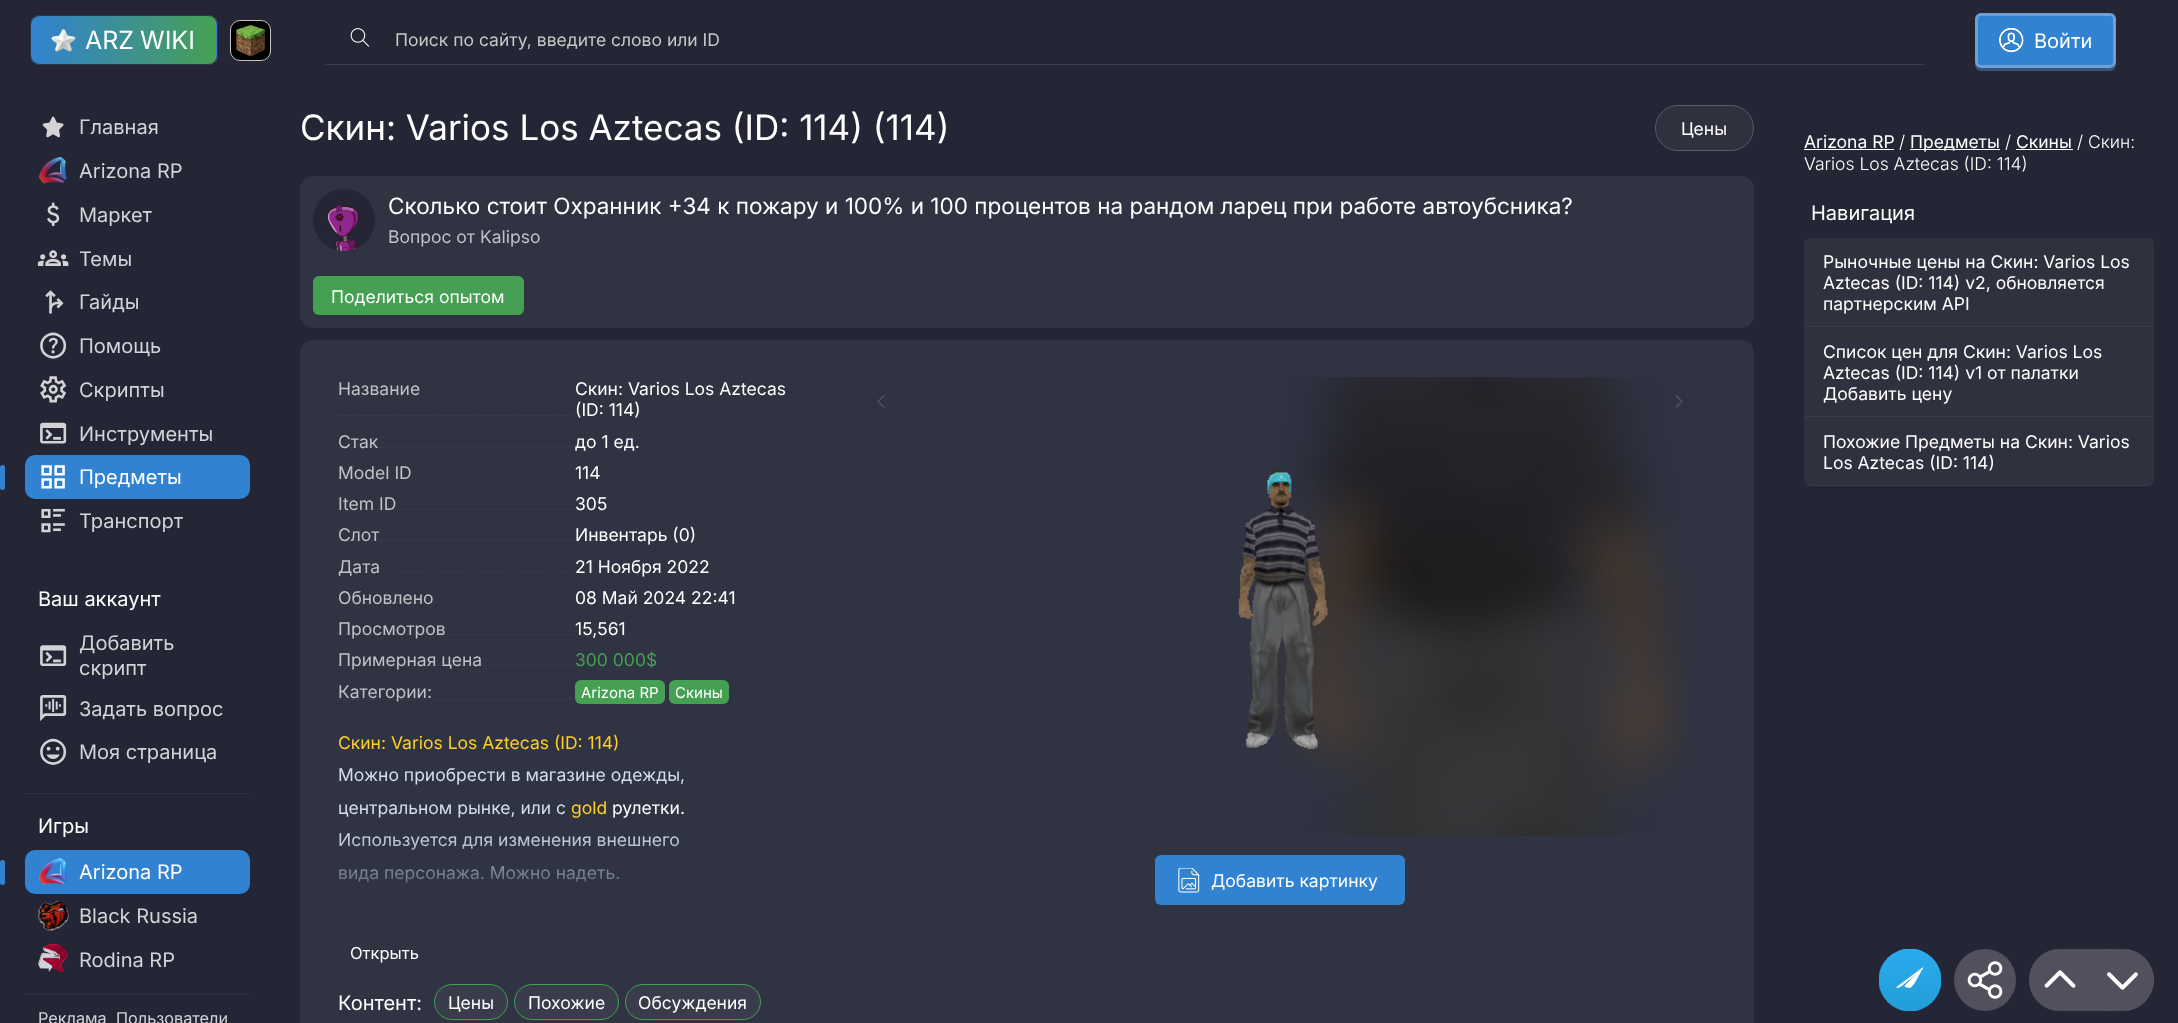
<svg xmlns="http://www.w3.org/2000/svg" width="2178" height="1023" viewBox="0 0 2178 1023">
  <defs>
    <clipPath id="clip1"><rect x="30" y="15" width="188" height="50" rx="10"/></clipPath>
    <linearGradient id="g1" gradientUnits="userSpaceOnUse" x1="216" y1="40" x2="31" y2="40"><stop offset="0" stop-color="#46a053"/><stop offset="1" stop-color="#3282d2"/></linearGradient>
    <linearGradient id="g2" gradientUnits="userSpaceOnUse" x1="401" y1="40" x2="216" y2="40"><stop offset="0" stop-color="#46a053"/><stop offset="1" stop-color="#3282d2"/></linearGradient>
    <clipPath id="clip2"><rect x="1804" y="200" width="350" height="286" rx="6"/></clipPath>
    <clipPath id="clip3"><rect x="1804" y="238" width="350" height="248" rx="6"/></clipPath>
    <clipPath id="clip4"><path d="M1879 949h62v62H1879z"/></clipPath>
    <linearGradient id="g3" gradientUnits="userSpaceOnUse" x1="1910" y1="949" x2="1910" y2="1011"><stop offset="0" stop-color="#2aabee"/><stop offset="1" stop-color="#229ed9"/></linearGradient>
    <linearGradient id="g4" gradientUnits="userSpaceOnUse" x1="575" y1="920" x2="575" y2="795"><stop offset="0.09" stop-color="#2f3342"/><stop offset="0.71" stop-color="#2f3342" stop-opacity="0"/></linearGradient>
  </defs>
  <rect width="100%" height="100%" fill="#252635"/>
  <g clip-path="url(#clip1)">
    <path d="M31 15h185v50H31z" fill="url(#g1)"/>
    <path d="M216 15h2v50H216z" fill="url(#g2)"/>
  </g>
  <rect x="30.5" y="15.5" width="187" height="49" rx="9.5" fill="none" stroke="#283749"/>
  <image x="51" y="28" width="25" height="24" href="img/1.png"/>
  <rect x="230.5" y="20.5" width="40" height="40" rx="9.5" fill="#000" stroke="#c1c1c1"/>
  <image x="236" y="25" width="29" height="32" href="img/2.png"/>
  <image x="350" y="28" width="20" height="19" href="img/3.png"/>
  <path d="M325 64h1600v1H325z" fill="#3b3c49"/>
  <path d="M1975 61V65C1975 68 1978 71 1981 71H2110C2113 71 2116 68 2116 65V63C2115 66 2113 68 2110 68H1981C1978 68 1975 65 1975 61Z" fill="#3a5676"/>
  <rect x="1976.5" y="14.5" width="138" height="52" rx="4.5" fill="#3282d2" stroke="#6d9fd8" stroke-width="3"/>
  <image x="1999" y="28" width="25" height="25" href="img/4.png"/>
  <image x="42" y="116" width="22" height="22" href="img/5.png"/>
  <image x="38" y="157" width="29" height="27" href="img/6.png"/>
  <image x="47" y="202" width="13" height="24" href="img/7.png"/>
  <image x="37" y="250" width="32" height="16" href="img/8.png"/>
  <image x="45" y="290" width="19" height="24" href="img/9.png"/>
  <image x="40" y="332" width="27" height="27" href="img/10.png"/>
  <image x="40" y="376" width="27" height="27" href="img/11.png"/>
  <image x="40" y="422" width="27" height="22" href="img/12.png"/>
  <rect x="25" y="455" width="225" height="44" rx="10" fill="#3282d2"/>
  <rect y="465" width="5" height="25" rx="2.5" fill="#3282d2"/>
  <image x="41" y="465" width="24" height="24" href="img/13.png"/>
  <image x="41" y="508" width="24" height="25" href="img/14.png"/>
  <image x="40" y="645" width="27" height="21" href="img/15.png"/>
  <image x="40" y="695" width="27" height="26" href="img/16.png"/>
  <image x="40" y="738" width="27" height="27" href="img/17.png"/>
  <path d="M25 793h225v1H25z" fill="#30313f"/>
  <rect x="25" y="850" width="225" height="44" rx="10" fill="#3282d2"/>
  <rect y="860" width="5" height="25" rx="2.5" fill="#3282d2"/>
  <image x="38" y="858" width="29" height="27" href="img/18.png"/>
  <image x="37" y="901" width="32" height="30" href="img/19.png"/>
  <image x="38" y="943" width="30" height="30" href="img/20.png"/>
  <path d="M25 994h225v1H25z" fill="#30313f"/>
  <rect x="1655" y="105" width="99" height="46" rx="23" fill="#30313f"/>
  <rect x="1655.5" y="105.5" width="98" height="45" rx="22.5" fill="none" stroke="#ffffff33"/>
  <rect x="300" y="176" width="1454" height="152" rx="13" fill="#2f3342"/>
  <circle cx="344" cy="220" r="31" fill="#252635"/>
  <image x="327" y="205" width="32" height="47" href="img/21.png"/>
  <rect x="313" y="276" width="211" height="39" rx="6" fill="#46a053"/>
  <rect x="300" y="340" width="1454" height="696" rx="13" fill="#2f3342"/>
  <path d="M337.5 415.5H575" fill="none" stroke="#3e414f" stroke-width="1.2" stroke-dasharray="1.25 1.25"/>
  <path d="M337.5 447H575" fill="none" stroke="#c1c2c61a" stroke-width="1.2" stroke-dasharray="1.25 1.25"/>
  <path d="M337.5 478H575" fill="none" stroke="#c1c2c61a" stroke-width="1.2" stroke-dasharray="1.25 1.25"/>
  <path d="M337.5 509.5H575" fill="none" stroke="#c1c2c61a" stroke-width="1.2" stroke-dasharray="1.25 1.25"/>
  <path d="M337.5 540.5H575" fill="none" stroke="#c1c2c61a" stroke-width="1.2" stroke-dasharray="1.25 1.25"/>
  <path d="M337.5 572H575" fill="none" stroke="#c1c2c61a" stroke-width="1.2" stroke-dasharray="1.25 1.25"/>
  <path d="M337.5 603H575" fill="none" stroke="#c1c2c61a" stroke-width="1.2" stroke-dasharray="1.25 1.25"/>
  <path d="M337.5 634.5H575" fill="none" stroke="#c1c2c61a" stroke-width="1.2" stroke-dasharray="1.25 1.25"/>
  <path d="M337.5 665.5H575" fill="none" stroke="#c1c2c61a" stroke-width="1.2" stroke-dasharray="1.25 1.25"/>
  <path d="M337.5 699.5H575" fill="none" stroke="#c1c2c61a" stroke-width="1.2" stroke-dasharray="1.25 1.25"/>
  <rect x="575" y="680" width="90" height="24" rx="6" fill="#46a053"/>
  <rect x="669" y="680" width="60" height="24" rx="6" fill="#46a053"/>
  <image x="1277" y="377" width="415" height="459" href="img/22.png"/>
  <image x="1238" y="468" width="90" height="281" href="img/23.png"/>
  <image x="877" y="395" width="8" height="13" href="img/24.png"/>
  <image x="1675" y="395" width="8" height="13" href="img/25.png"/>
  <rect x="1155" y="855" width="250" height="50" rx="6" fill="#3282d2"/>
  <image x="1178" y="868" width="22" height="25" href="img/26.png"/>
  <rect x="434.5" y="984.5" width="73" height="35" rx="17.5" fill="#393d4b" stroke="#46a053"/>
  <rect x="514.5" y="984.5" width="104" height="35" rx="17.5" fill="#393d4b" stroke="#46a053"/>
  <rect x="625.5" y="984.5" width="135" height="35" rx="17.5" fill="#393d4b" stroke="#46a053"/>
  <path d="M1804 149h90v1H1804z" fill="#fff"/>
  <path d="M1910 149h90v1H1910z" fill="#fff"/>
  <path d="M2016 149h57v1H2016z" fill="#fff"/>
  <path d="M1810 238H2148C2151.5 238 2154 240.5 2154 244V328H1804V244C1804 240.5 1806.5 238 1810 238Z" fill="#30313f"/>
  <path d="M1804 326h350v1H1804z" fill="#3a3b49"/>
  <path d="M1804 328h350v90H1804z" fill="#30313f"/>
  <path d="M1804 416h350v1H1804z" fill="#3a3b49"/>
  <path d="M1804 418H2154V480C2154 483.5 2151.5 486 2148 486H1810C1806.5 486 1804 483.5 1804 480Z" fill="#30313f"/>
  <g clip-path="url(#clip2)">
    <g clip-path="url(#clip3)">
      <path d="M1804 485h350v1H1804z" fill="#3a3b49"/>
    </g>
  </g>
  <g clip-path="url(#clip4)">
    <circle cx="1910" cy="980" r="31.5" fill="url(#g3)"/>
  </g>
  <path d="M1898.5 985.5L1920.5 969C1920.5 968.5 1922.5 967 1923.5 967.5L1922 970L1917 979C1916 980.5 1912.5 987.5 1910 988L1907.5 987.5C1907 987.5 1904.5 987 1904.5 986.5C1904.5 985 1916 975 1916 974.5L1901 986.5C1899.5 987.5 1893 989.5 1898.5 985.5Z" fill="#fff" fill-rule="evenodd"/>
  <circle cx="1985" cy="980" r="31" fill="#52505c"/>
  <image x="1967" y="961" width="36" height="38" href="img/27.png"/>
  <rect x="2029" y="949" width="125" height="62" rx="31" fill="#52505c"/>
  <circle cx="2060" cy="980" r="31" fill="#52505c"/>
  <image x="2044" y="970" width="32" height="18" href="img/28.png"/>
  <rect x="2091" y="949" width="63" height="62" rx="31" fill="#52505c"/>
  <image x="2107" y="972" width="31" height="18" href="img/29.png"/>
  <g font-family="Inter" font-size="25" fill="#fff">
    <text x="85" y="49">ARZ</text>
    <text x="140" y="49">WIKI</text>
  </g>
  <text x="395" y="46" font-family="Inter" font-size="17.5" fill="#c7c7c7">Поиск по сайту, введите слово или ID</text>
  <text x="2034" y="48" font-family="Inter" font-size="20" fill="#fff">Войти</text>
  <g font-family="Inter" font-size="20" fill="#d3d4d7">
    <text x="79" y="134">Главная</text>
    <text x="79" y="178">Arizona RP</text>
    <text x="79" y="222">Маркет</text>
    <text x="79" y="266">Темы</text>
    <text x="79" y="309">Гайды</text>
    <text x="79" y="353">Помощь</text>
    <text x="79" y="397">Скрипты</text>
    <text x="79" y="441">Инструменты</text>
  </g>
  <text x="79" y="484" font-family="Inter" font-size="20" fill="#fff">Предметы</text>
  <text x="79" y="528" font-family="Inter" font-size="20" fill="#d3d4d7">Транспорт</text>
  <text x="38" y="606" font-family="Inter" font-size="20" fill="#fff">Ваш аккаунт</text>
  <g font-family="Inter" font-size="20" fill="#d3d4d7">
    <text x="79" y="650">Добавить</text>
    <text x="79" y="675">скрипт</text>
    <text x="79" y="716">Задать вопрос</text>
    <text x="79" y="759">Моя страница</text>
  </g>
  <g font-family="Inter" font-size="20" fill="#fff">
    <text x="38" y="833">Игры</text>
    <text x="79" y="879">Arizona RP</text>
  </g>
  <g font-family="Inter" font-size="20" fill="#d3d4d7">
    <text x="79" y="923">Black Russia</text>
    <text x="79" y="967">Rodina RP</text>
  </g>
  <g font-family="Inter" font-size="16.25" fill="#d3d4d7">
    <text x="38" y="1024">Реклама</text>
    <text x="116" y="1024">Пользователи</text>
  </g>
  <text x="300" y="140" font-family="Inter" font-size="35" fill="#fff">Скин: Varios Los Aztecas (ID: 114) (114)</text>
  <text x="1681" y="135" font-family="Inter" font-size="17.5" fill="#fff">Цены</text>
  <text x="388" y="214" font-family="Inter" font-size="22.5" fill="#fff">Сколько стоит Охранник +34 к пожару и 100% и 100 процентов на рандом ларец при работе автоубсника?</text>
  <text x="388" y="243" font-family="Inter" font-size="17.5" fill="#c1c2c6">Вопрос от Kalipso</text>
  <text x="331" y="303" font-family="Inter" font-size="17.5" fill="#fff">Поделиться опытом</text>
  <text x="338" y="395" font-family="Inter" font-size="17.5" fill="#c1c2c6">Название</text>
  <g font-family="Inter" font-size="17.5" fill="#fff">
    <text x="575" y="395">Скин: Varios Los Aztecas</text>
    <text x="575" y="416">(ID: 114)</text>
  </g>
  <text x="338" y="448" font-family="Inter" font-size="17.5" fill="#c1c2c6">Стак</text>
  <text x="575" y="448" font-family="Inter" font-size="17.5" fill="#fff">до 1 ед.</text>
  <text x="338" y="479" font-family="Inter" font-size="17.5" fill="#c1c2c6">Model ID</text>
  <text x="575" y="479" font-family="Inter" font-size="17.5" fill="#fff">114</text>
  <text x="338" y="510" font-family="Inter" font-size="17.5" fill="#c1c2c6">Item ID</text>
  <text x="575" y="510" font-family="Inter" font-size="17.5" fill="#fff">305</text>
  <text x="338" y="541" font-family="Inter" font-size="17.5" fill="#c1c2c6">Слот</text>
  <text x="575" y="541" font-family="Inter" font-size="17.5" fill="#fff">Инвентарь (0)</text>
  <text x="338" y="573" font-family="Inter" font-size="17.5" fill="#c1c2c6">Дата</text>
  <text x="575" y="573" font-family="Inter" font-size="17.5" fill="#fff">21 Ноября 2022</text>
  <text x="338" y="604" font-family="Inter" font-size="17.5" fill="#c1c2c6">Обновлено</text>
  <text x="575" y="604" font-family="Inter" font-size="17.5" fill="#fff">08 Май 2024 22:41</text>
  <text x="338" y="635" font-family="Inter" font-size="17.5" fill="#c1c2c6">Просмотров</text>
  <text x="575" y="635" font-family="Inter" font-size="17.5" fill="#fff">15,561</text>
  <text x="338" y="666" font-family="Inter" font-size="17.5" fill="#c1c2c6">Примерная цена</text>
  <text x="575" y="666" font-family="Inter" font-size="17.5" fill="#46a053">300 000$</text>
  <text x="338" y="698" font-family="Inter" font-size="17.5" fill="#c1c2c6">Категории:</text>
  <g font-family="Inter" font-size="15" fill="#fff">
    <text x="581" y="698">Arizona RP</text>
    <text x="675" y="698">Скины</text>
  </g>
  <text x="338" y="749" font-family="Inter" font-size="17.5" fill="#fdcf28">Скин: Varios Los Aztecas (ID: 114)</text>
  <g font-family="Inter" font-size="17.5" fill="#d3ddee">
    <text x="338" y="781">Можно приобрести в магазине одежды,</text>
    <text x="338" y="814">центральном рынке, или с</text>
  </g>
  <text x="571" y="814" font-family="Inter" font-size="17.5" fill="#fdcf28">gold</text>
  <text x="612" y="814" font-family="Inter" font-size="17.5" fill="#fff">рулетки.</text>
  <g font-family="Inter" font-size="17.5" fill="#d3ddee">
    <text x="338" y="846">Используется для изменения внешнего</text>
    <text x="338" y="879">вида персонажа. Можно надеть.</text>
  </g>
  <path d="M338 833h341v50H338z" fill="url(#g4)"/>
  <text x="350" y="959" font-family="Inter" font-size="16.5" fill="#fff">Открыть</text>
  <text x="1211" y="887" font-family="Inter" font-size="17.5" fill="#fff">Добавить картинку</text>
  <text x="338" y="1010" font-family="Inter" font-size="20" fill="#fff">Контент:</text>
  <g font-family="Inter" font-size="17.5" fill="#fff">
    <text x="448" y="1009">Цены</text>
    <text x="528" y="1009">Похожие</text>
    <text x="638" y="1009">Обсуждения</text>
    <text x="1804" y="148">Arizona RP</text>
  </g>
  <text x="1899" y="148" font-family="Inter" font-size="17.5" font-weight="300" fill="#fff">/</text>
  <text x="1910" y="148" font-family="Inter" font-size="17.5" fill="#fff">Предметы</text>
  <text x="2005" y="148" font-family="Inter" font-size="17.5" font-weight="300" fill="#fff">/</text>
  <text x="2016" y="148" font-family="Inter" font-size="17.5" fill="#fff">Скины</text>
  <g font-family="Inter" font-size="17.5" font-weight="300" fill="#fff">
    <text x="2077" y="148">/ Скин:</text>
    <text x="1804" y="170">Varios Los Aztecas (ID: 114)</text>
  </g>
  <text x="1811" y="220" font-family="Inter" font-size="20" fill="#fff">Навигация</text>
  <g font-family="Inter" font-size="17.5" fill="#fff">
    <text x="1823" y="268">Рыночные цены на Скин: Varios Los</text>
    <text x="1823" y="289">Aztecas (ID: 114) v2, обновляется</text>
    <text x="1823" y="310">партнерским API</text>
    <text x="1823" y="358">Список цен для Скин: Varios Los</text>
    <text x="1823" y="379">Aztecas (ID: 114) v1 от палатки</text>
    <text x="1823" y="400">Добавить цену</text>
    <text x="1823" y="448">Похожие Предметы на Скин: Varios</text>
    <text x="1823" y="469">Los Aztecas (ID: 114)</text>
  </g>
</svg>
